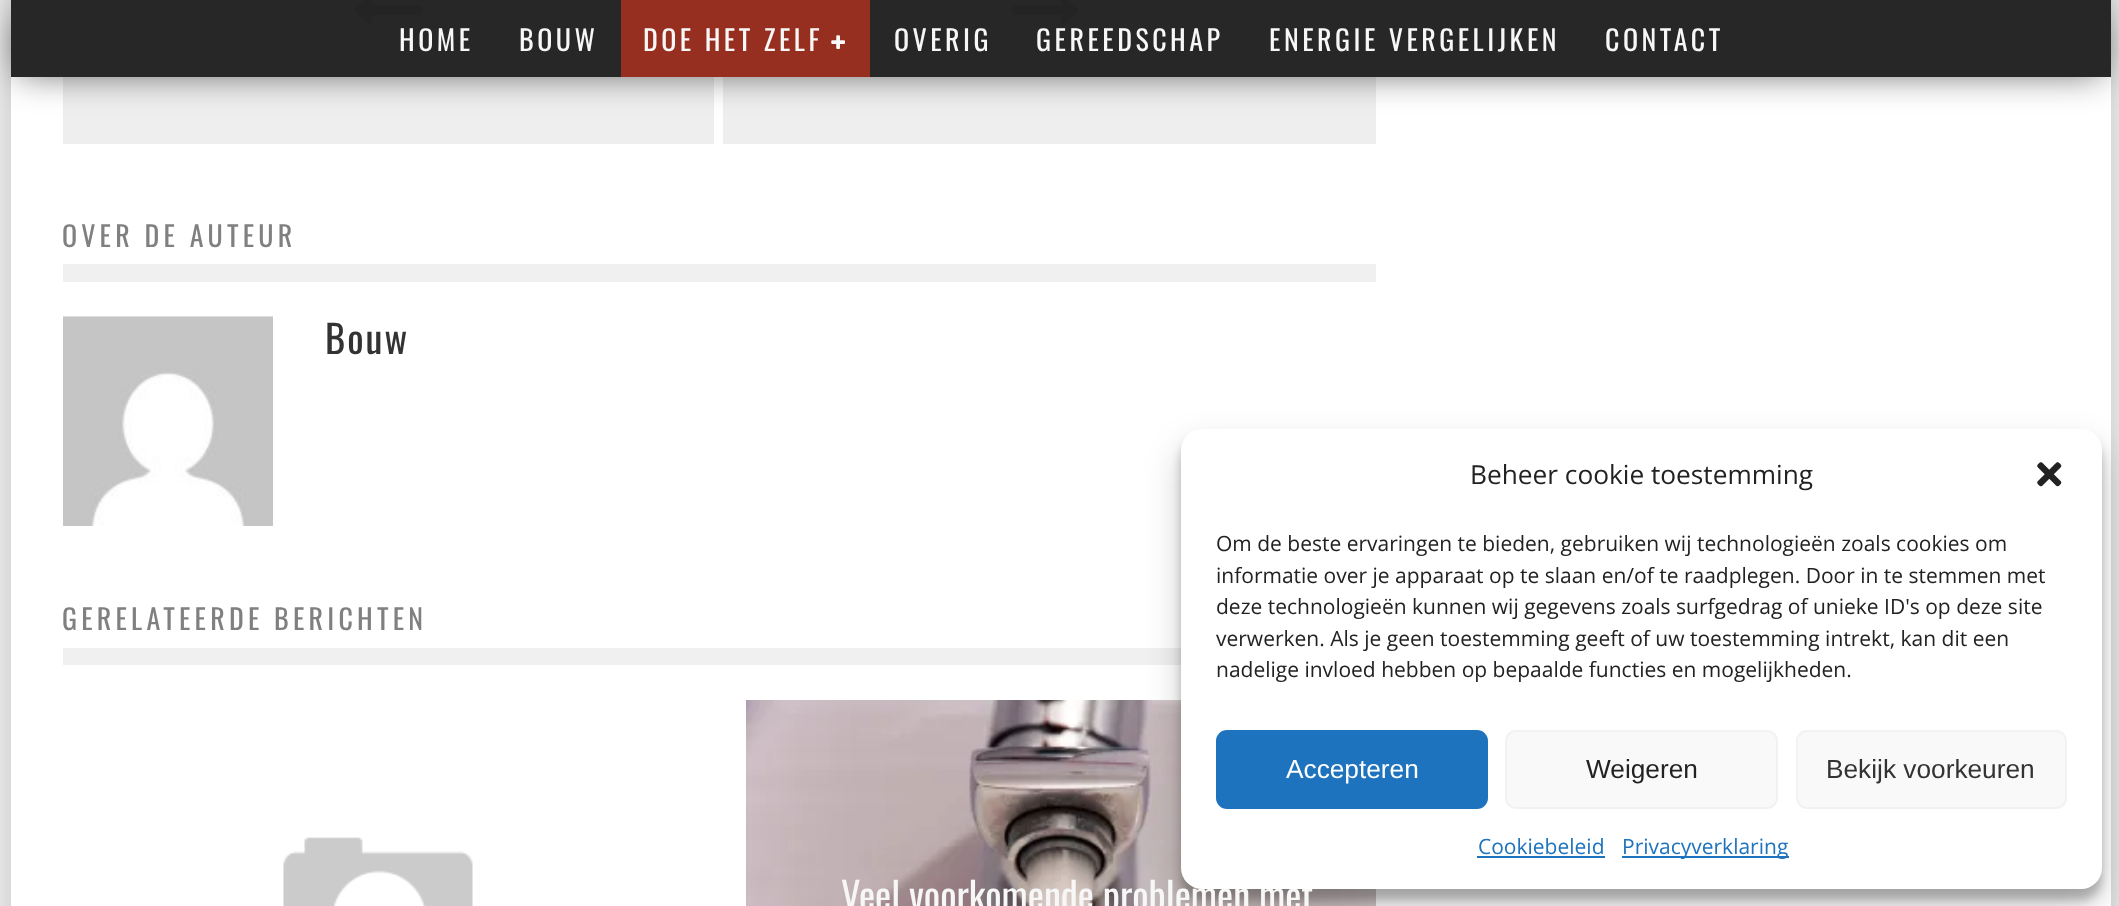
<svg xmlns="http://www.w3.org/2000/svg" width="2119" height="906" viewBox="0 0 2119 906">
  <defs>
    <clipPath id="clip1"><path d="M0 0H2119V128H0ZM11 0H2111V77H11Z" clip-rule="evenodd"/></clipPath>
  </defs>
  <rect width="100%" height="100%" fill="#fff"/>
  <path d="M-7 -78h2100v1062H-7z" fill="#00000026" filter="blur(26px)"/>
  <path d="M28 -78h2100v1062H28z" fill="#00000026" filter="blur(26px)"/>
  <path d="M11 0h2100v906H11z" fill="#fff"/>
  <path d="M63 0h1313v144H63z" fill="#eee"/>
  <path d="M714 77h9v67H714z" fill="#fff"/>
  <path d="M354 10V9L367-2C369-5 372-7 372-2V5H420C423 5 422 10 422 11C422 17 421 15 412 15H372C372 16 373 26 370 25Z" fill="#c5c5c5"/>
  <path d="M1012 14C1012 12 1010 5 1013 5H1062C1062 4 1060-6 1063-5L1079 10V11L1066 22C1064 25 1062 27 1062 22V15H1013C1012 15 1012 14 1012 14Z" fill="#c5c5c5"/>
  <g clip-path="url(#clip1)">
    <path d="M19 14h2083v60H19z" fill="#00000099" filter="blur(17.5px)"/>
  </g>
  <path d="M11 0h2100v77H11z" fill="#1b1b1bf2"/>
  <path d="M621 0h249v77H621z" fill="#962f1f"/>
  <image x="831" y="35" width="14" height="14" href="img/1.png"/>
  <path d="M63 264h1313v18H63z" fill="#f0f0f0"/>
  <image x="63" y="316" width="210" height="210" href="img/2.png"/>
  <path d="M63 648h1118v17H63z" fill="#f0f0f0"/>
  <image x="63" y="700" width="630" height="206" href="img/3.png"/>
  <image x="746" y="700" width="630" height="206" href="img/4.png"/>
  <rect x="1181" y="439" width="921" height="461" rx="21" fill="#0000003b" filter="blur(5px)"/>
  <rect x="1181" y="446" width="921" height="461" rx="21" fill="#00000030" filter="blur(17.5px)"/>
  <g font-family="Oswald" font-size="28" letter-spacing="3.5" fill="#f7f7f7">
    <text x="399" y="51">HOME</text>
    <text x="519" y="51">BOUW</text>
    <text x="643" y="51">DOE HET ZELF</text>
    <text x="894" y="51">OVERIG</text>
    <text x="1036" y="51">GEREEDSCHAP</text>
    <text x="1269" y="51">ENERGIE VERGELIJKEN</text>
    <text x="1605" y="51">CONTACT</text>
  </g>
  <text x="62" y="247" font-family="Oswald" font-size="28" letter-spacing="4.2" fill="#808080">OVER DE AUTEUR</text>
  <text x="325" y="354" font-family="Oswald" font-size="38.5" letter-spacing="2" fill="#333">Bouw</text>
  <text x="62" y="630" font-family="Oswald" font-size="28" letter-spacing="4.2" fill="#808080">GERELATEERDE BERICHTEN</text>
  <text x="841" y="911" font-family="Oswald" font-size="38.5" fill="#f7f7f7">Veel voorkomende problemen met</text>
  <rect x="1181" y="429" width="921" height="460" rx="21" fill="#fff"/>
  <text x="1470" y="484" font-family="Open Sans" font-size="26.25" fill="#222">Beheer cookie toestemming</text>
  <image x="2037" y="462" width="25" height="25" href="img/5.png"/>
  <g font-family="Open Sans" font-size="21" fill="#222">
    <text x="1216" y="551">Om de beste ervaringen te bieden, gebruiken wij technologieën zoals cookies om</text>
    <text x="1216" y="583">informatie over je apparaat op te slaan en/of te raadplegen. Door in te stemmen met</text>
    <text x="1216" y="614">deze technologieën kunnen wij gegevens zoals surfgedrag of unieke ID's op deze site</text>
    <text x="1216" y="646">verwerken. Als je geen toestemming geeft of uw toestemming intrekt, kan dit een</text>
    <text x="1216" y="677">nadelige invloed hebben op bepaalde functies en mogelijkheden.</text>
  </g>
  <rect x="1217" y="731" width="270" height="77" rx="10" fill="#1e73be" stroke="#1e73be" stroke-width="2"/>
  <text x="1286" y="778" font-family="Liberation Sans" font-size="26.25" fill="#fff">Accepteren</text>
  <rect x="1506" y="731" width="271" height="77" rx="10" fill="#f9f9f9" stroke="#f2f2f2" stroke-width="2"/>
  <text x="1586" y="778" font-family="Liberation Sans" font-size="26.25" fill="#222">Weigeren</text>
  <rect x="1797" y="731" width="269" height="77" rx="10" fill="#f9f9f9" stroke="#f2f2f2" stroke-width="2"/>
  <text x="1826" y="778" font-family="Liberation Sans" font-size="26.25" fill="#333">Bekijk voorkeuren</text>
  <text x="1478" y="854" font-family="Open Sans" font-size="21" fill="#1e73be">Cookiebeleid</text>
  <path d="M1477 856h128v2H1477z" fill="#1e73be"/>
  <path d="M1622 856h167v2H1622z" fill="#1e73be"/>
  <text x="1622" y="854" font-family="Open Sans" font-size="21" fill="#1e73be">Privacyverklaring</text>
</svg>
